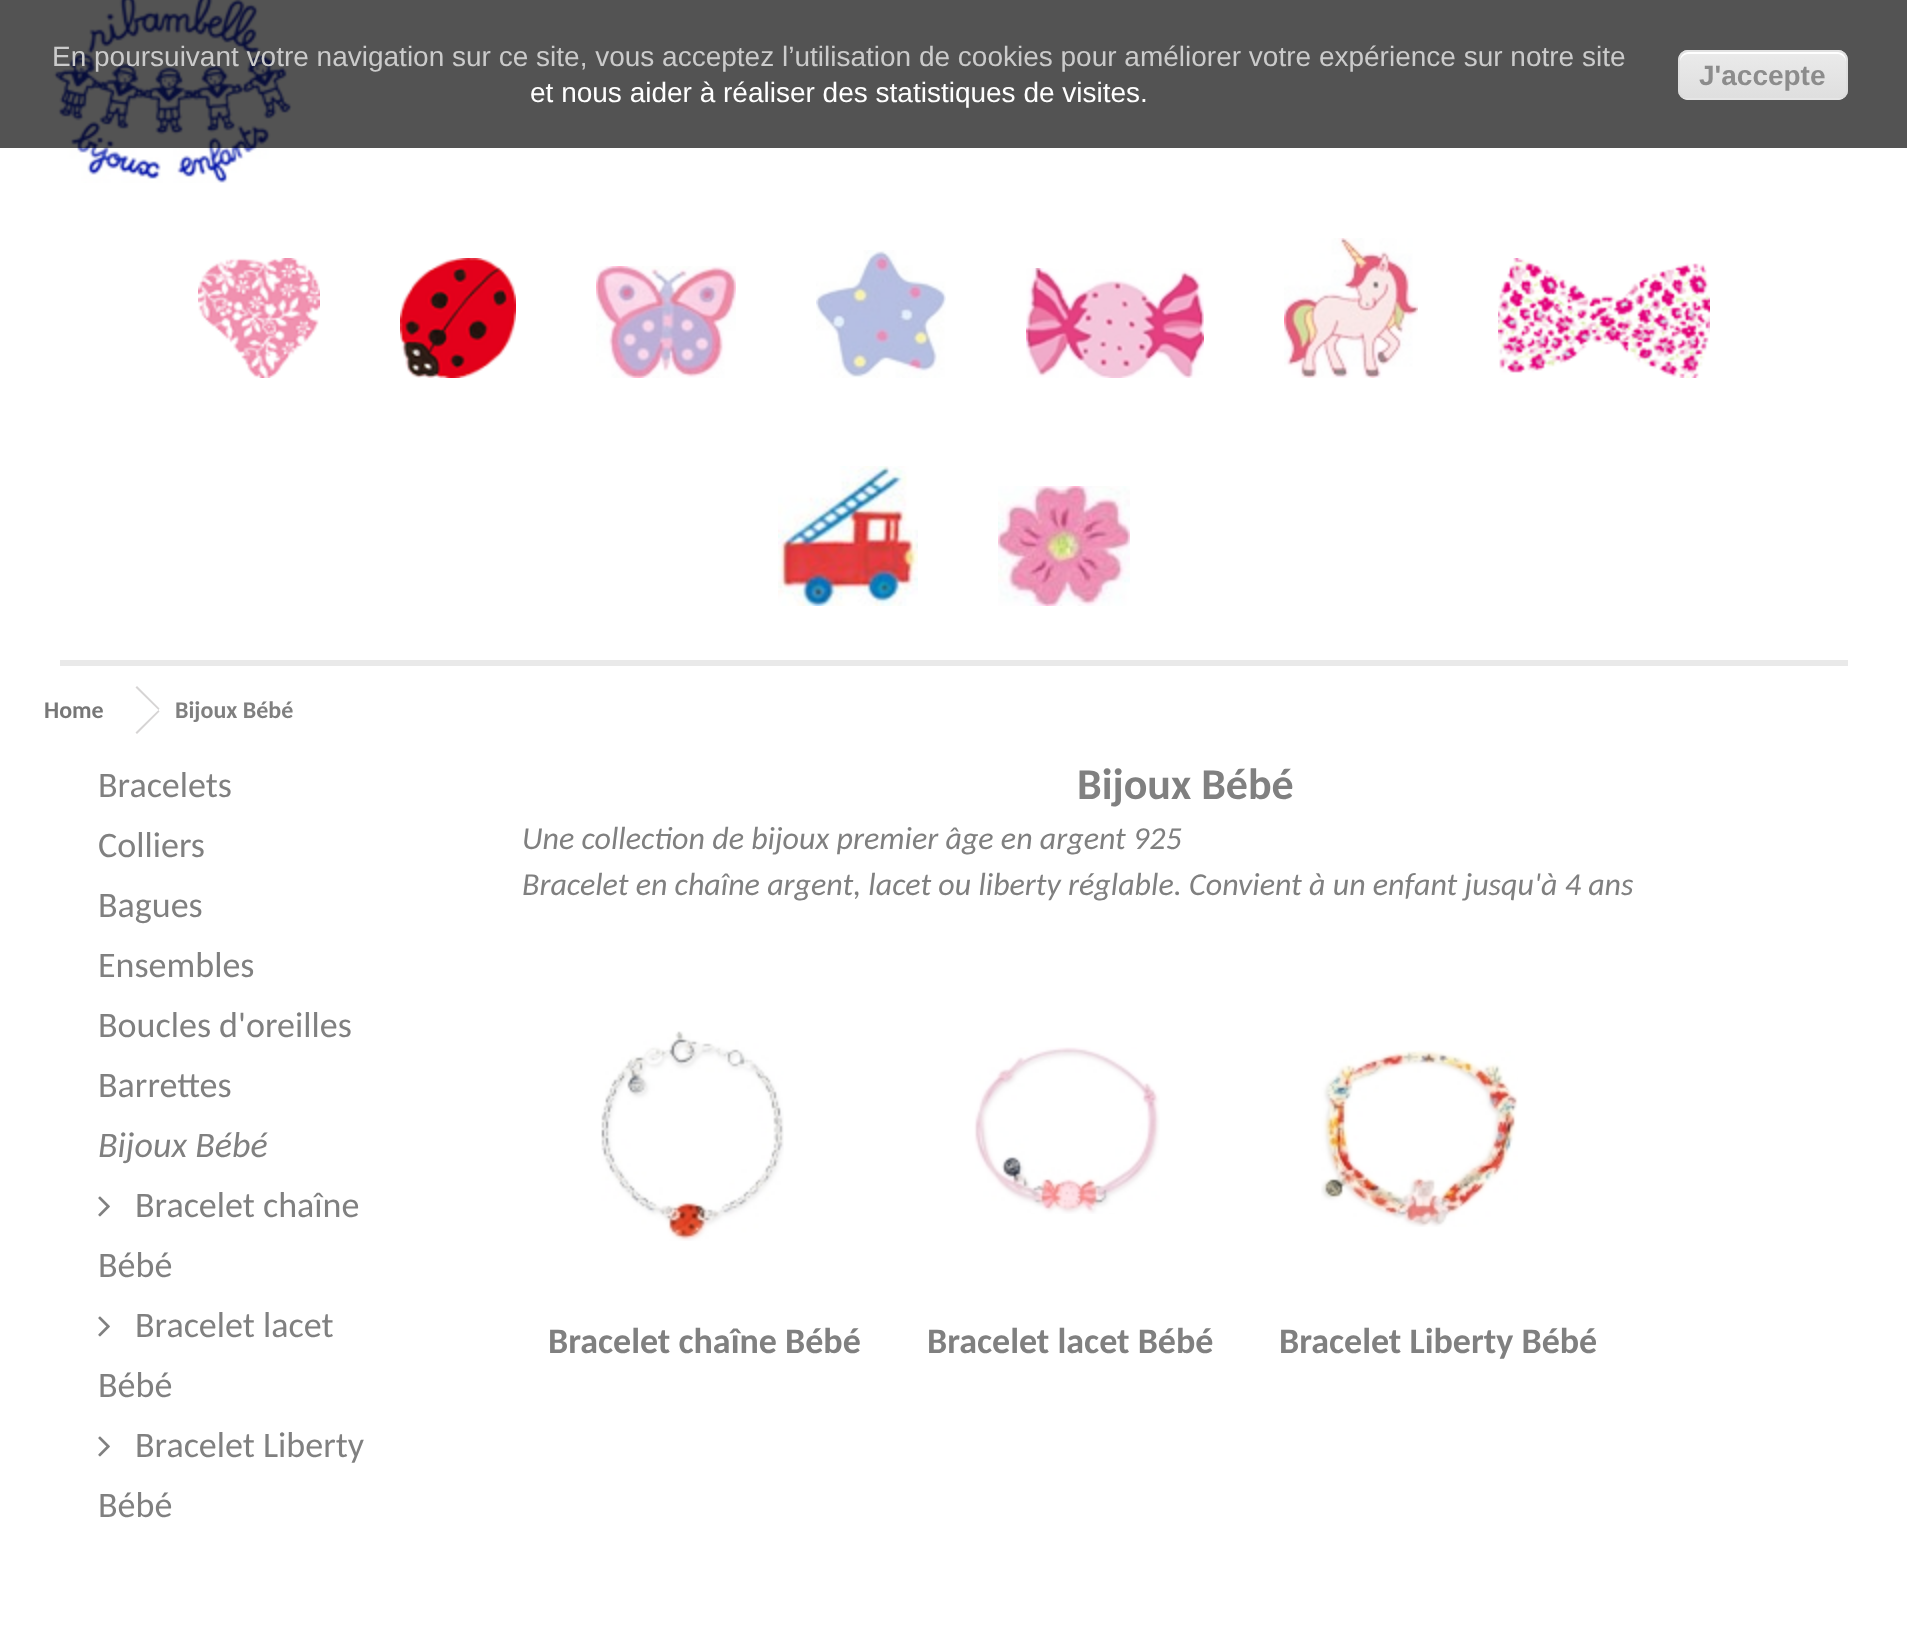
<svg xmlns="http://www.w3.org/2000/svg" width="1907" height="1636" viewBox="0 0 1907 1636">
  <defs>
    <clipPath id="clip1"><path d="M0 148h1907v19H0z"/></clipPath>
    <clipPath id="clip2"><rect x="1678" y="50" width="170" height="50" rx="10"/></clipPath>
    <linearGradient id="g1" gradientUnits="userSpaceOnUse" x1="1680" y1="6" x2="1680" y2="52"><stop offset="0.05" stop-color="#fbfbfb"/><stop offset="1" stop-color="#f0f0f0"/></linearGradient>
    <linearGradient id="g2" gradientUnits="userSpaceOnUse" x1="1680" y1="52" x2="1680" y2="98"><stop offset="0.05" stop-color="#f9f9f9" stop-opacity="0.7"/><stop offset="1" stop-color="#e9e9e9" stop-opacity="0.7"/></linearGradient>
    <linearGradient id="g3" gradientUnits="userSpaceOnUse" x1="1680" y1="98" x2="1680" y2="144"><stop offset="0.05" stop-color="#fbfbfb"/><stop offset="1" stop-color="#f0f0f0"/></linearGradient>
  </defs>
  <rect width="100%" height="100%" fill="#fff"/>
  <image x="53" y="0" width="239" height="183" href="img/1.png"/>
  <path d="M60 660h1788v6H60z" fill="#e9e9e9"/>
  <image x="198" y="258" width="122" height="120" href="img/2.png"/>
  <image x="400" y="258" width="116" height="120" href="img/3.png"/>
  <image x="596" y="266" width="140" height="112" href="img/4.png"/>
  <image x="816" y="250" width="130" height="128" href="img/5.png"/>
  <image x="1026" y="268" width="178" height="110" href="img/6.png"/>
  <image x="1284" y="238" width="134" height="140" href="img/7.png"/>
  <image x="1498" y="258" width="212" height="120" href="img/8.png"/>
  <image x="778" y="466" width="140" height="140" href="img/9.png"/>
  <image x="998" y="486" width="132" height="120" href="img/10.png"/>
  <g clip-path="url(#clip1)">
    <path d="M0 0h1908v148H0z" fill="#ffffffb3" filter="blur(10px)"/>
  </g>
  <path d="M0 0h1907v148H0z" fill="#0a0a0ab3"/>
  <rect x="1678" y="50" width="170" height="50" rx="10" fill="#f9f9f9b3"/>
  <g clip-path="url(#clip2)">
    <path d="M1678 50h170v2H1678z" fill="url(#g1)"/>
    <path d="M1678 52h170v46H1678z" fill="url(#g2)"/>
    <path d="M1678 98h170v2H1678z" fill="url(#g3)"/>
  </g>
  <path d="M1688 54H1838C1842 54 1846 58 1846 62V60C1846 56 1842 52 1838 52H1688C1684 52 1680 56 1680 60V62C1680 58 1684 54 1688 54Z" fill="#fff"/>
  <rect x="1679" y="51" width="168" height="48" rx="9" fill="none" stroke="#dcdcdcb3" stroke-width="2"/>
  <path d="M137 686L159.5 708.5L158.5 710L135.5 687.5ZM158.5 710L159.5 711.5L137 734L135.5 732.5Z" fill="#d6d4d4"/>
  <image x="98" y="1196" width="12" height="21" href="img/11.png"/>
  <image x="98" y="1316" width="12" height="21" href="img/11.png"/>
  <image x="98" y="1436" width="12" height="21" href="img/11.png"/>
  <image x="601" y="1031" width="183" height="210" href="img/12.png"/>
  <image x="974" y="1047" width="186" height="167" href="img/13.png"/>
  <image x="1321" y="1050" width="197" height="177" href="img/14.png"/>
  <text x="52" y="66" font-family="Liberation Sans" font-size="28" fill="#cbcbcb">En poursuivant votre navigation sur ce site, vous acceptez l’utilisation de cookies pour améliorer votre expérience sur notre site</text>
  <text x="530" y="102" font-family="Liberation Sans" font-size="28" fill="#fff">et nous aider à réaliser des statistiques de visites.</text>
  <text x="1699" y="85" font-family="Liberation Sans" font-size="28" font-weight="bold" fill="#8c8c8c">J'accepte</text>
  <text x="44" y="718" font-family="Carlito" font-size="24" font-weight="bold" fill="#777">Home</text>
  <text x="175" y="718" font-family="Carlito" font-size="24" font-weight="bold" fill="#808080">Bijoux Bébé</text>
  <g font-family="Carlito" font-size="36" fill="#808080">
    <text x="98" y="797">Bracelets</text>
    <text x="98" y="857">Colliers</text>
    <text x="98" y="917">Bagues</text>
    <text x="98" y="977">Ensembles</text>
    <text x="98" y="1037">Boucles d'oreilles</text>
    <text x="98" y="1097">Barrettes</text>
  </g>
  <text x="98" y="1157" font-family="Carlito" font-size="36" font-style="italic" fill="#808080">Bijoux Bébé</text>
  <g font-family="Carlito" font-size="36" fill="#808080">
    <text x="135" y="1217">Bracelet chaîne</text>
    <text x="98" y="1277">Bébé</text>
    <text x="135" y="1337">Bracelet lacet</text>
    <text x="98" y="1397">Bébé</text>
    <text x="135" y="1457">Bracelet Liberty</text>
    <text x="98" y="1517">Bébé</text>
  </g>
  <text x="1077" y="799" font-family="Carlito" font-size="44" font-weight="bold" fill="#808080">Bijoux Bébé</text>
  <g font-family="Carlito" font-size="32" font-style="italic" fill="#808080">
    <text x="522" y="849">Une collection de bijoux premier âge en argent 925</text>
    <text x="522" y="895">Bracelet en chaîne argent, lacet ou liberty réglable. Convient à un enfant jusqu'à 4 ans</text>
  </g>
  <g font-family="Carlito" font-size="36" font-weight="bold" fill="#808080">
    <text x="548" y="1353">Bracelet chaîne Bébé</text>
    <text x="927" y="1353">Bracelet lacet Bébé</text>
    <text x="1279" y="1353">Bracelet Liberty Bébé</text>
  </g>
</svg>
